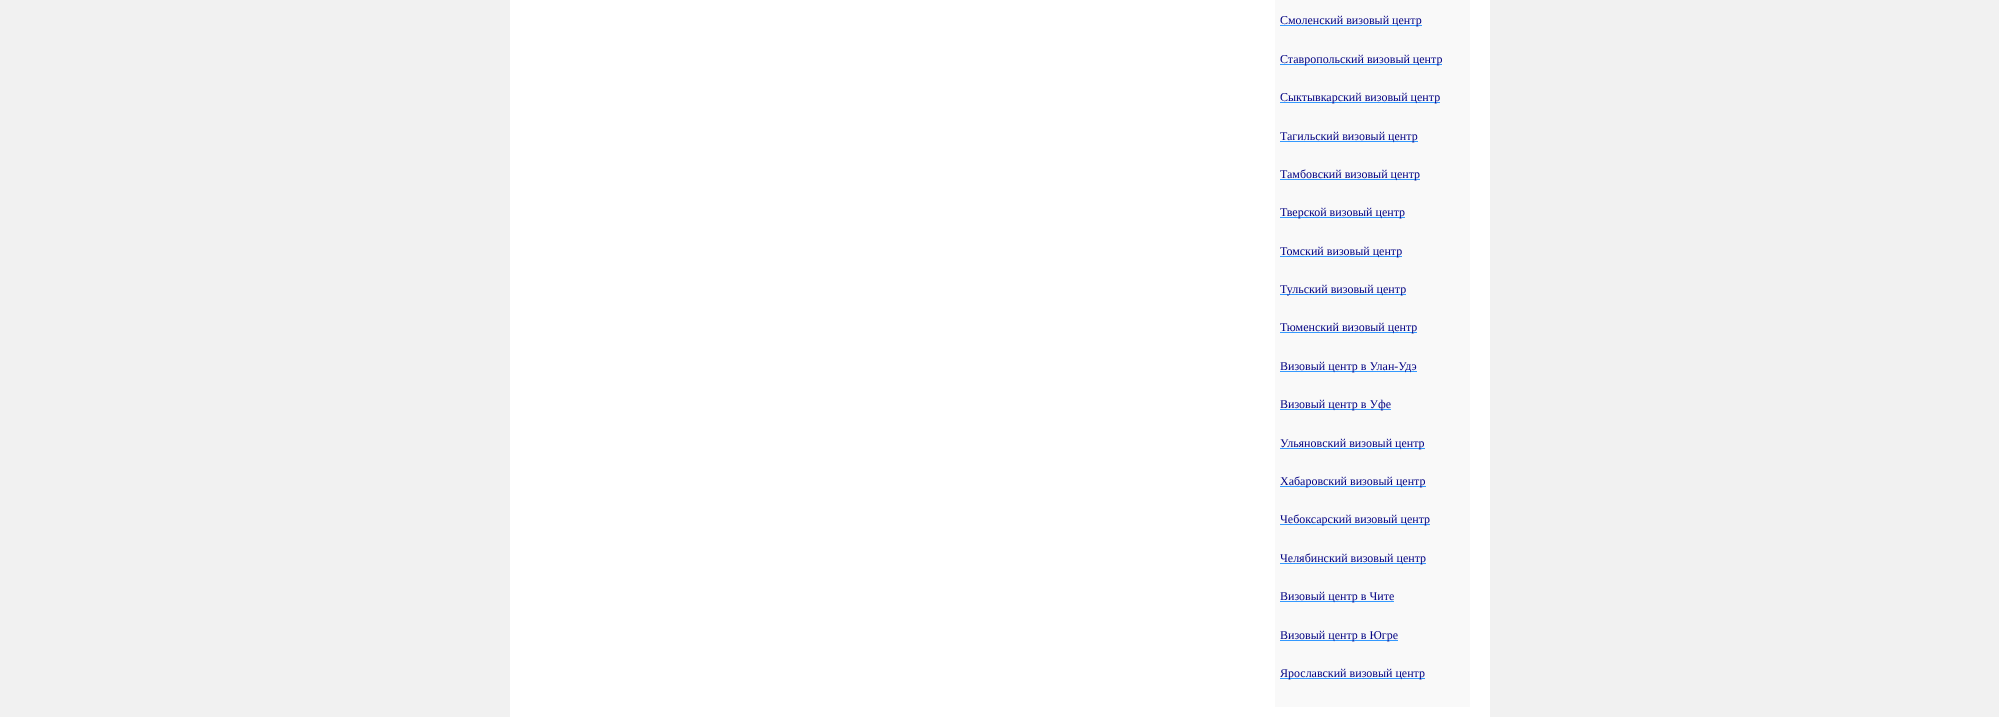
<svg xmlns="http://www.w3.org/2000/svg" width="1999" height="717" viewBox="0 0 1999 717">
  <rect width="100%" height="100%" fill="#f1f1f1"/>
  <path d="M510 0h980v717H510z" fill="#fff"/>
  <path d="M1275 0h195v707H1275z" fill="#f9f9f9"/>
  <path d="M1280 25h142v1H1280z" fill="#39f"/>
  <path d="M1280 64h162v1H1280z" fill="#39f"/>
  <path d="M1280 102h160v1H1280z" fill="#39f"/>
  <path d="M1280 141h138v1H1280z" fill="#39f"/>
  <path d="M1280 179h140v1H1280z" fill="#39f"/>
  <path d="M1280 217h125v1H1280z" fill="#39f"/>
  <path d="M1280 256h122v1H1280z" fill="#39f"/>
  <path d="M1280 294h126v1H1280z" fill="#39f"/>
  <path d="M1280 332h137v1H1280z" fill="#39f"/>
  <path d="M1280 371h137v1H1280z" fill="#39f"/>
  <path d="M1280 409h111v1H1280z" fill="#39f"/>
  <path d="M1280 448h145v1H1280z" fill="#39f"/>
  <path d="M1280 486h146v1H1280z" fill="#39f"/>
  <path d="M1280 524h150v1H1280z" fill="#39f"/>
  <path d="M1280 563h146v1H1280z" fill="#39f"/>
  <path d="M1280 601h114v1H1280z" fill="#39f"/>
  <path d="M1280 640h118v1H1280z" fill="#39f"/>
  <path d="M1280 678h145v1H1280z" fill="#39f"/>
  <g font-family="Liberation Serif" font-size="12" fill="#000080">
    <text x="1280" y="24">Смоленский визовый центр</text>
    <text x="1280" y="63">Ставропольский визовый центр</text>
    <text x="1280" y="101">Сыктывкарский визовый центр</text>
    <text x="1280" y="140">Тагильский визовый центр</text>
    <text x="1280" y="178">Тамбовский визовый центр</text>
    <text x="1280" y="216">Тверской визовый центр</text>
    <text x="1280" y="255">Томский визовый центр</text>
    <text x="1280" y="293">Тульский визовый центр</text>
    <text x="1280" y="331">Тюменский визовый центр</text>
    <text x="1280" y="370">Визовый центр в Улан-Удэ</text>
    <text x="1280" y="408">Визовый центр в Уфе</text>
    <text x="1280" y="447">Ульяновский визовый центр</text>
    <text x="1280" y="485">Хабаровский визовый центр</text>
    <text x="1280" y="523">Чебоксарский визовый центр</text>
    <text x="1280" y="562">Челябинский визовый центр</text>
    <text x="1280" y="600">Визовый центр в Чите</text>
    <text x="1280" y="639">Визовый центр в Югре</text>
    <text x="1280" y="677">Ярославский визовый центр</text>
  </g>
</svg>
